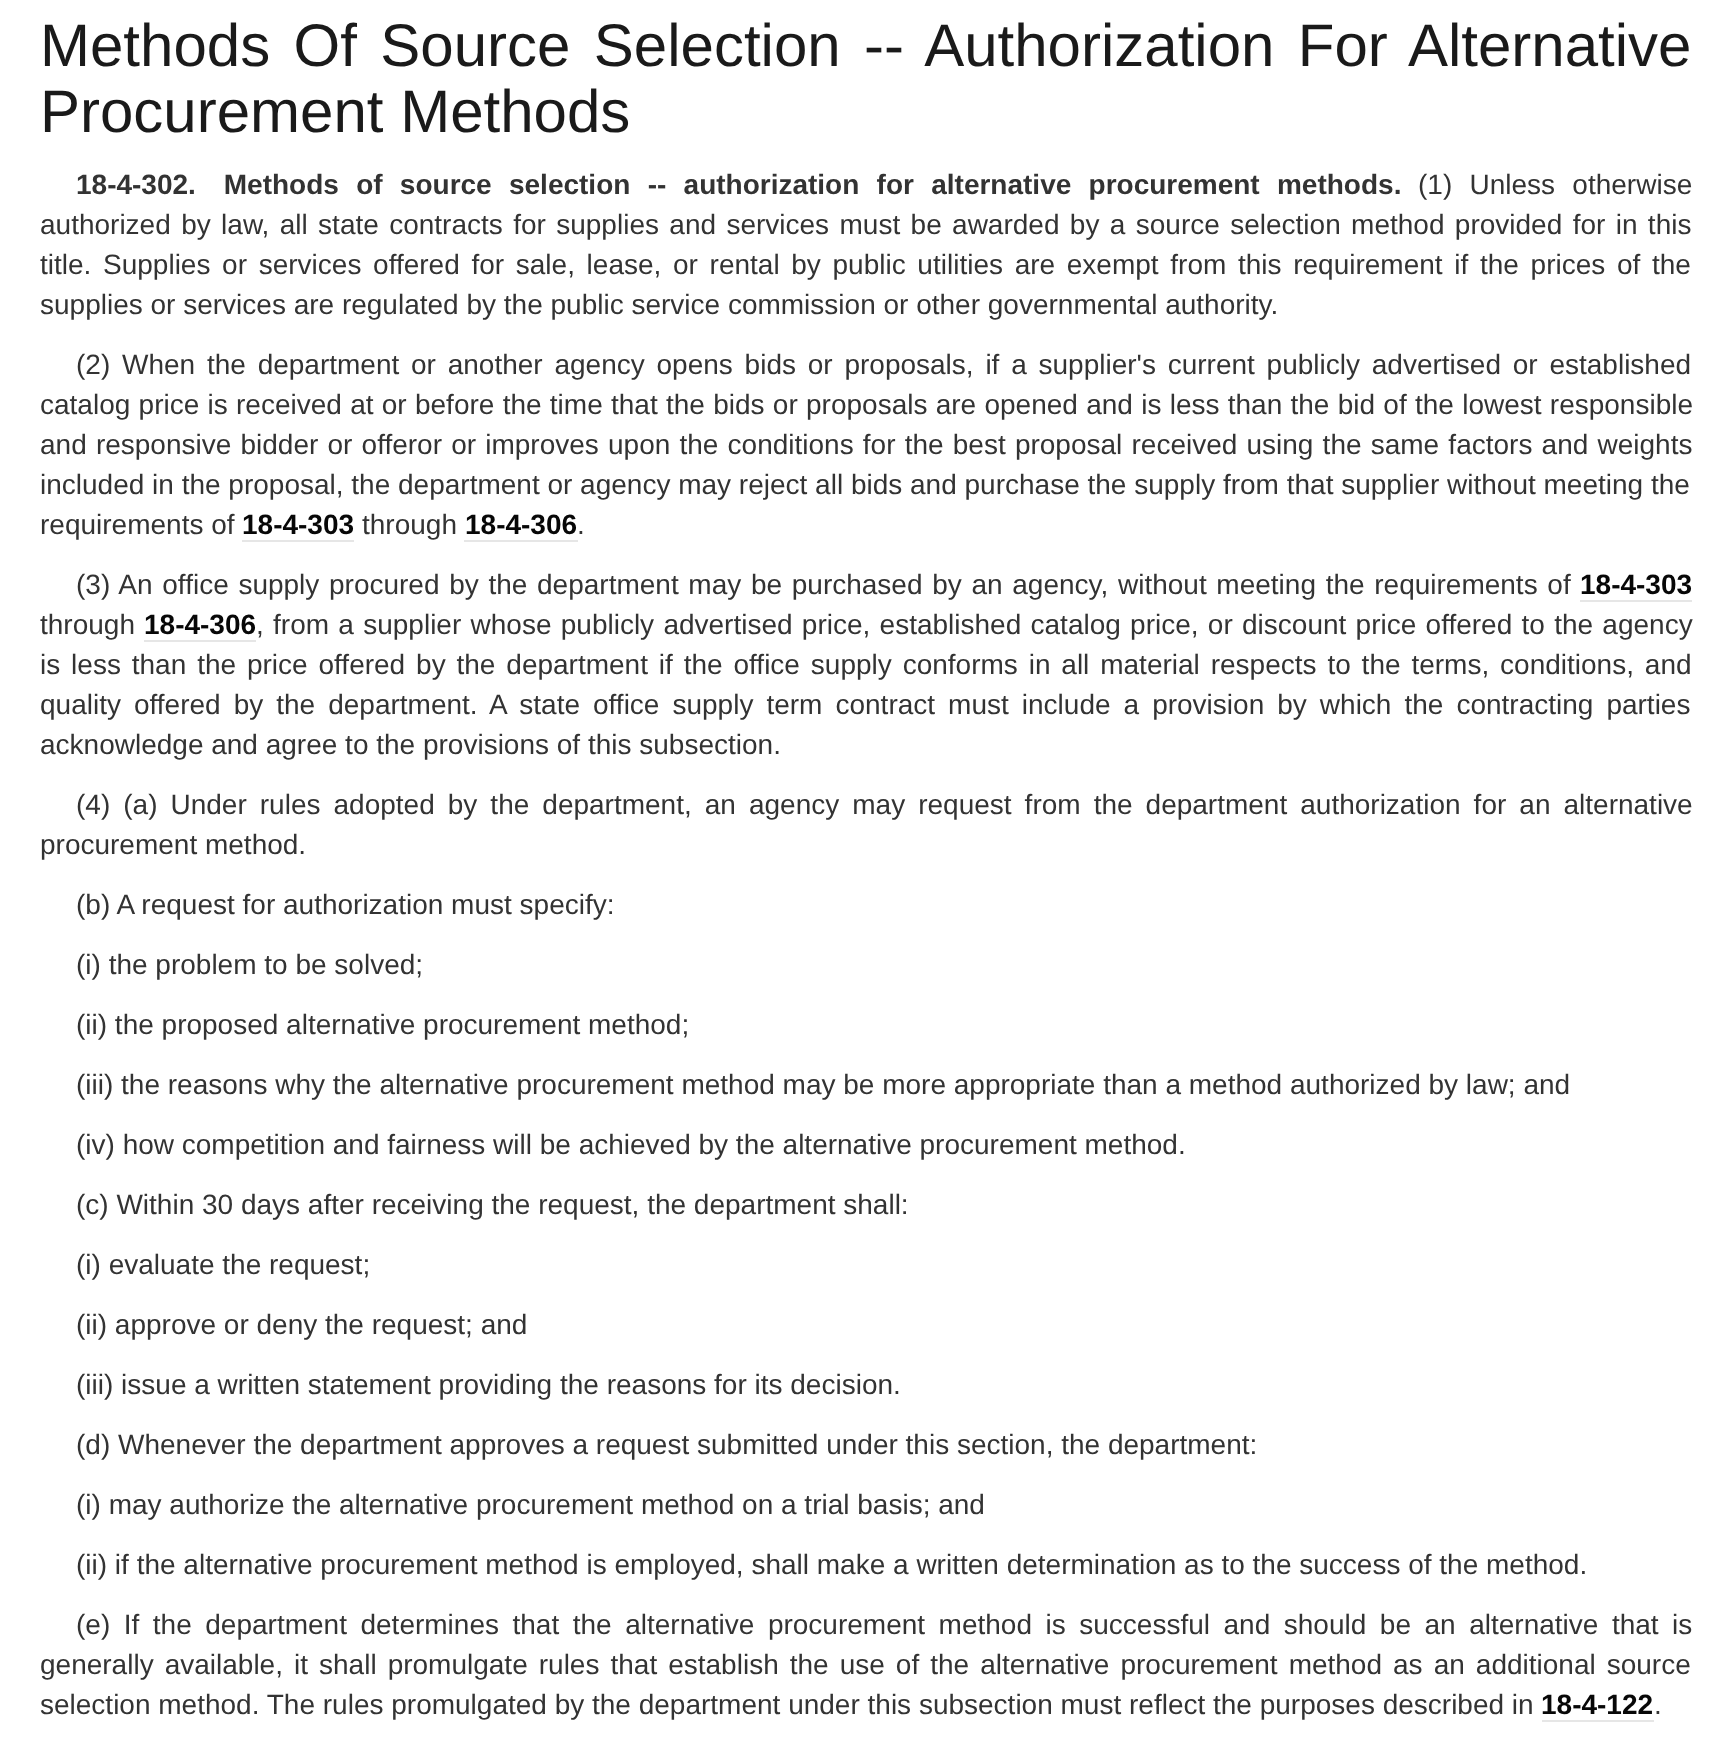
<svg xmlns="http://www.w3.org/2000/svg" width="1732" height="1755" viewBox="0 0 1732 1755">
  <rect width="100%" height="100%" fill="#fff"/>
  <path d="M242 540h112v2H242z" fill="#e6e6e6"/>
  <path d="M464 540h114v2H464z" fill="#e6e6e6"/>
  <path d="M1580 600h112v2H1580z" fill="#e6e6e6"/>
  <path d="M144 640h112v2H144z" fill="#e6e6e6"/>
  <path d="M1542 1720h112v2H1542z" fill="#e6e6e6"/>
  <g font-family="Liberation Sans" font-size="60" fill="#1a1a1a">
    <text x="40" y="66" word-spacing="6.75">Methods Of Source Selection -- Authorization For Alternative</text>
    <text x="40" y="132">Procurement Methods</text>
  </g>
  <g font-family="Liberation Sans" font-size="28" font-weight="bold" fill="#333">
    <text x="76" y="194">18-4-302</text>
    <text x="188" y="194" word-spacing="9.5">. Methods of source selection -- authorization for alternative procurement methods.</text>
  </g>
  <g font-family="Liberation Sans" font-size="28" fill="#333">
    <text x="1418" y="194" word-spacing="9.5">(1) Unless otherwise</text>
    <text x="40" y="234" word-spacing="2.6">authorized by law, all state contracts for supplies and services must be awarded by a source selection method provided for in this</text>
    <text x="40" y="274" word-spacing="3.9">title. Supplies or services offered for sale, lease, or rental by public utilities are exempt from this requirement if the prices of the</text>
    <text x="40" y="314">supplies or services are regulated by the public service commission or other governmental authority.</text>
    <text x="76" y="374" word-spacing="4">(2) When the department or another agency opens bids or proposals, if a supplier's current publicly advertised or established</text>
    <text x="40" y="414" word-spacing="0.5">catalog price is received at or before the time that the bids or proposals are opened and is less than the bid of the lowest responsible</text>
    <text x="40" y="454" word-spacing="1.4">and responsive bidder or offeror or improves upon the conditions for the best proposal received using the same factors and weights</text>
    <text x="40" y="494">included in the proposal, the department or agency may reject all bids and purchase the supply from that supplier without meeting the</text>
    <text x="40" y="534">requirements of</text>
  </g>
  <text x="242" y="534" font-family="Liberation Sans" font-size="28" font-weight="bold" fill="#070707">18-4-303</text>
  <text x="362" y="534" font-family="Liberation Sans" font-size="28" fill="#333">through</text>
  <text x="465" y="534" font-family="Liberation Sans" font-size="28" font-weight="bold" fill="#070707">18-4-306</text>
  <g font-family="Liberation Sans" font-size="28" fill="#333">
    <text x="577" y="534">.</text>
    <text x="76" y="594" word-spacing="1.9">(3) An office supply procured by the department may be purchased by an agency, without meeting the requirements of</text>
  </g>
  <text x="1580" y="594" font-family="Liberation Sans" font-size="28" font-weight="bold" fill="#070707">18-4-303</text>
  <text x="40" y="634" font-family="Liberation Sans" font-size="28" fill="#333">through</text>
  <text x="144" y="634" font-family="Liberation Sans" font-size="28" font-weight="bold" fill="#070707">18-4-306</text>
  <g font-family="Liberation Sans" font-size="28" fill="#333">
    <text x="256" y="634" word-spacing="1.5">, from a supplier whose publicly advertised price, established catalog price, or discount price offered to the agency</text>
    <text x="40" y="674" word-spacing="3.1">is less than the price offered by the department if the office supply conforms in all material respects to the terms, conditions, and</text>
    <text x="40" y="714" word-spacing="5.25">quality offered by the department. A state office supply term contract must include a provision by which the contracting parties</text>
    <text x="40" y="754">acknowledge and agree to the provisions of this subsection.</text>
    <text x="76" y="814" word-spacing="5.25">(4) (a) Under rules adopted by the department, an agency may request from the department authorization for an alternative</text>
    <text x="40" y="854">procurement method.</text>
    <text x="76" y="914">(b) A request for authorization must specify:</text>
    <text x="76" y="974">(i) the problem to be solved;</text>
    <text x="76" y="1034">(ii) the proposed alternative procurement method;</text>
    <text x="76" y="1094">(iii) the reasons why the alternative procurement method may be more appropriate than a method authorized by law; and</text>
    <text x="76" y="1154">(iv) how competition and fairness will be achieved by the alternative procurement method.</text>
    <text x="76" y="1214">(c) Within 30 days after receiving the request, the department shall:</text>
    <text x="76" y="1274">(i) evaluate the request;</text>
    <text x="76" y="1334">(ii) approve or deny the request; and</text>
    <text x="76" y="1394">(iii) issue a written statement providing the reasons for its decision.</text>
    <text x="76" y="1454">(d) Whenever the department approves a request submitted under this section, the department:</text>
    <text x="76" y="1514">(i) may authorize the alternative procurement method on a trial basis; and</text>
    <text x="76" y="1574">(ii) if the alternative procurement method is employed, shall make a written determination as to the success of the method.</text>
    <text x="76" y="1634" word-spacing="5.75">(e) If the department determines that the alternative procurement method is successful and should be an alternative that is</text>
    <text x="40" y="1674" word-spacing="3.25">generally available, it shall promulgate rules that establish the use of the alternative procurement method as an additional source</text>
    <text x="40" y="1714">selection method. The rules promulgated by the department under this subsection must reflect the purposes described in</text>
  </g>
  <text x="1541" y="1714" font-family="Liberation Sans" font-size="28" font-weight="bold" fill="#070707">18-4-122</text>
  <text x="1654" y="1714" font-family="Liberation Sans" font-size="28" fill="#333">.</text>
</svg>
